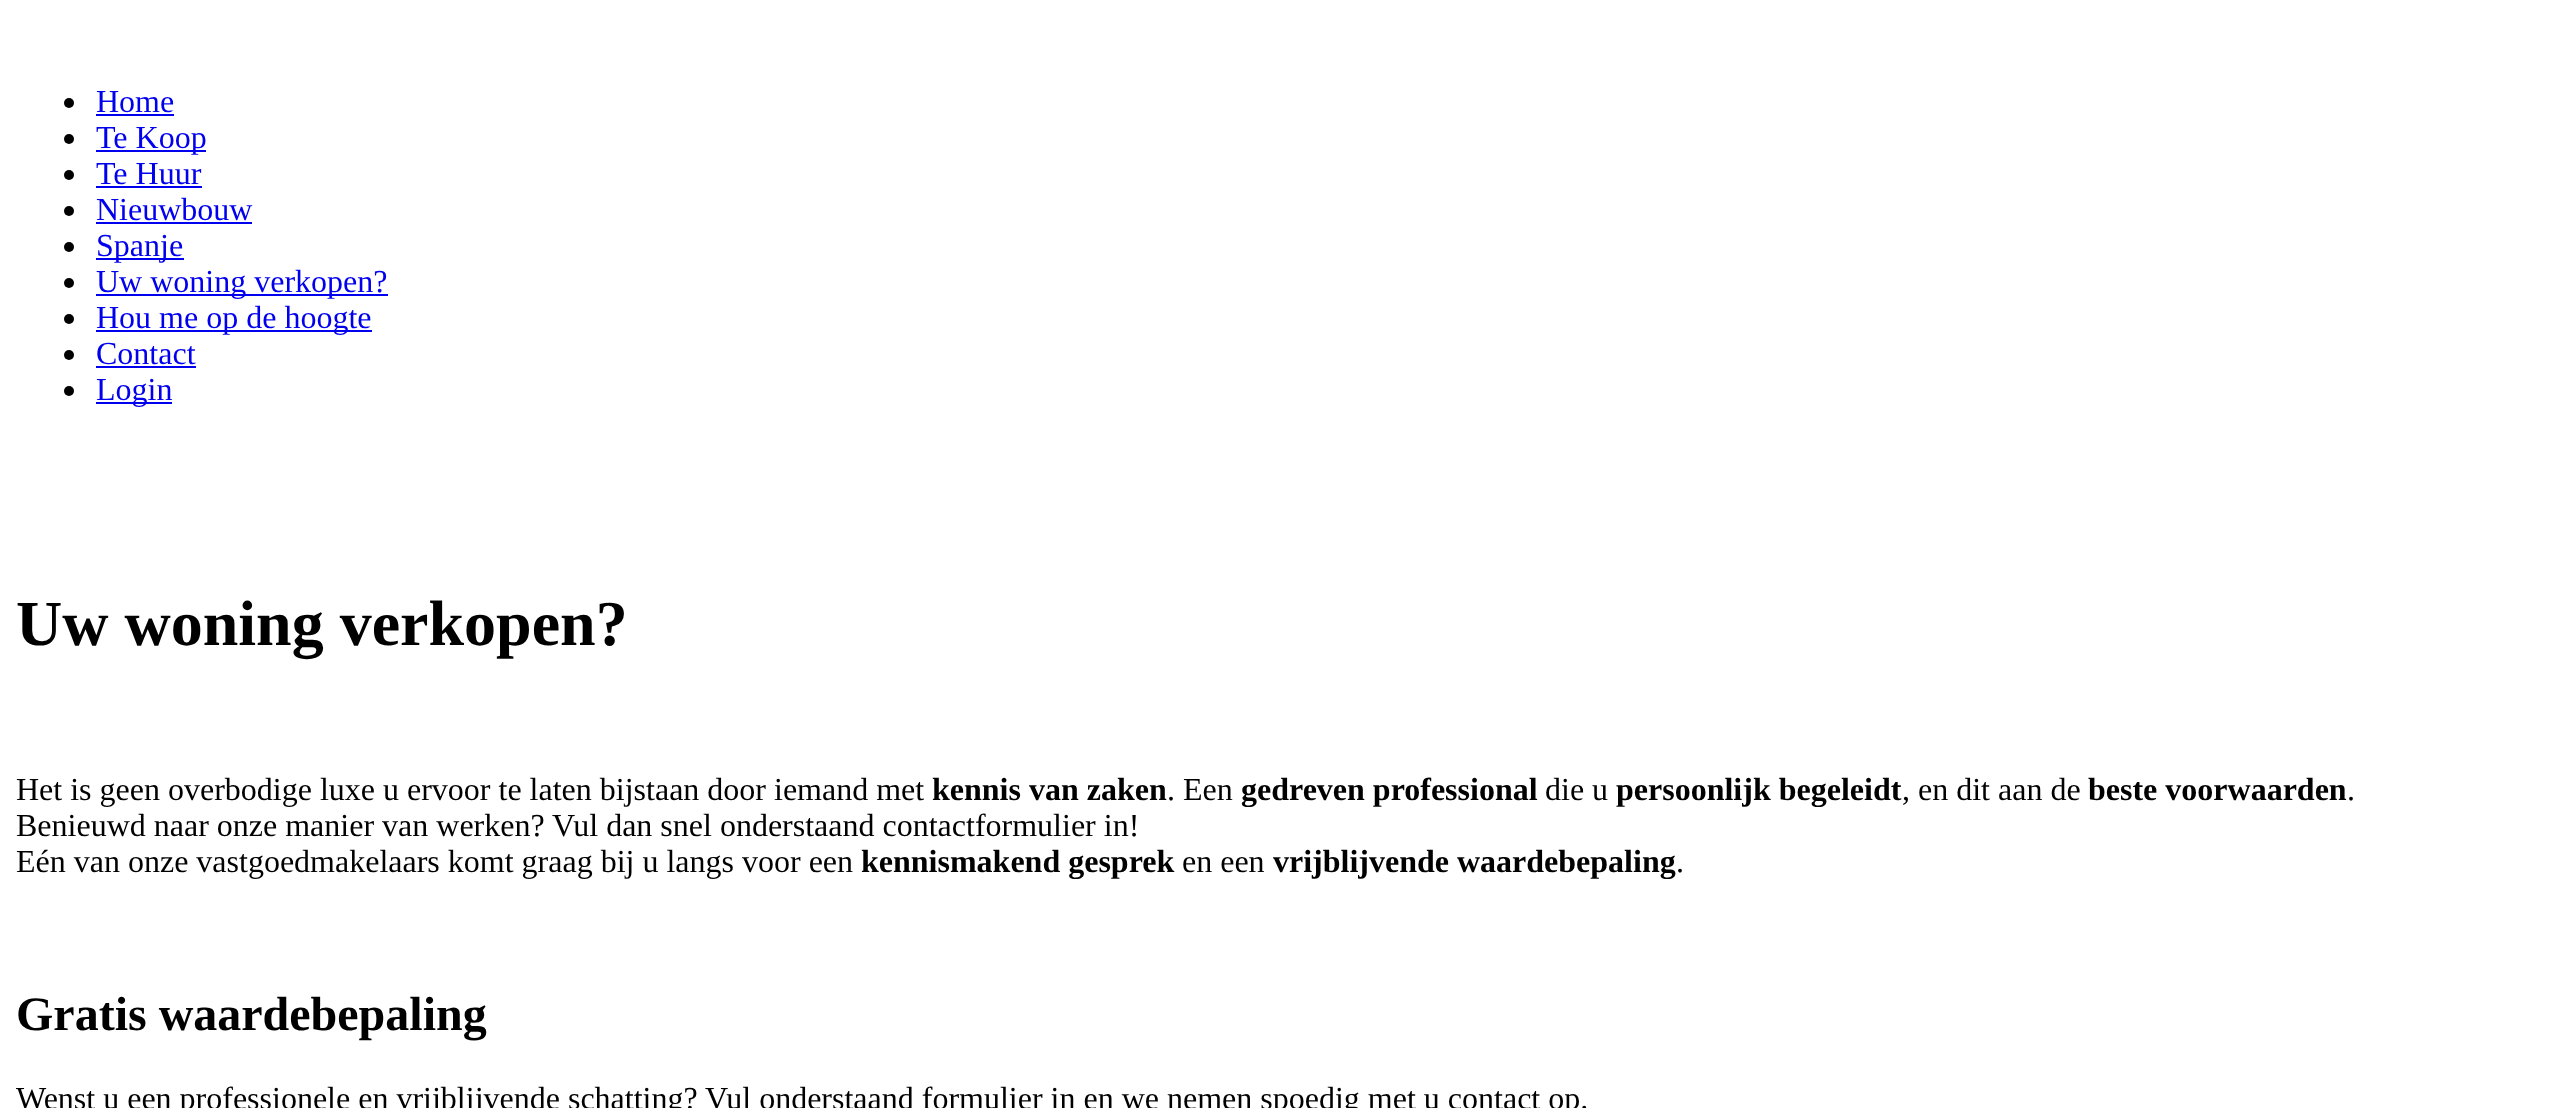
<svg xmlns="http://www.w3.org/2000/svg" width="2560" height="1108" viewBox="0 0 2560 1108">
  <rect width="100%" height="100%" fill="#fff"/>
  <circle cx="69" cy="103" r="5" fill="#000"/>
  <path d="M96 114h78v2H96z" fill="#00e"/>
  <circle cx="69" cy="139" r="5" fill="#000"/>
  <path d="M96 150h110v2H96z" fill="#00e"/>
  <circle cx="69" cy="175" r="5" fill="#000"/>
  <path d="M96 186h106v2H96z" fill="#00e"/>
  <circle cx="69" cy="211" r="5" fill="#000"/>
  <path d="M96 222h156v2H96z" fill="#00e"/>
  <circle cx="69" cy="247" r="5" fill="#000"/>
  <path d="M96 258h88v2H96z" fill="#00e"/>
  <circle cx="69" cy="283" r="5" fill="#000"/>
  <path d="M96 294h292v2H96z" fill="#00e"/>
  <circle cx="69" cy="319" r="5" fill="#000"/>
  <path d="M96 330h276v2H96z" fill="#00e"/>
  <circle cx="69" cy="355" r="5" fill="#000"/>
  <path d="M96 366h100v2H96z" fill="#00e"/>
  <circle cx="69" cy="391" r="5" fill="#000"/>
  <path d="M96 402h76v2H96z" fill="#00e"/>
  <g font-family="Liberation Serif" font-size="32" fill="#00e">
    <text x="96" y="112">Home</text>
    <text x="96" y="148">Te Koop</text>
    <text x="96" y="184">Te Huur</text>
    <text x="96" y="220">Nieuwbouw</text>
    <text x="96" y="256">Spanje</text>
    <text x="96" y="292">Uw woning verkopen?</text>
    <text x="96" y="328">Hou me op de hoogte</text>
    <text x="96" y="364">Contact</text>
    <text x="96" y="400">Login</text>
  </g>
  <text x="16" y="645" font-family="Liberation Serif" font-size="64" font-weight="bold" fill="#000">Uw woning verkopen?</text>
  <text x="16" y="800" font-family="Liberation Serif" font-size="32" fill="#000">Het is geen overbodige luxe u ervoor te laten bijstaan door iemand met</text>
  <text x="932" y="800" font-family="Liberation Serif" font-size="32" font-weight="bold" fill="#000">kennis van zaken</text>
  <text x="1167" y="800" font-family="Liberation Serif" font-size="32" fill="#000">. Een</text>
  <text x="1241" y="800" font-family="Liberation Serif" font-size="32" font-weight="bold" fill="#000">gedreven professional</text>
  <text x="1545" y="800" font-family="Liberation Serif" font-size="32" fill="#000">die u</text>
  <text x="1616" y="800" font-family="Liberation Serif" font-size="32" font-weight="bold" fill="#000">persoonlijk begeleidt</text>
  <text x="1902" y="800" font-family="Liberation Serif" font-size="32" fill="#000">, en dit aan de</text>
  <text x="2088" y="800" font-family="Liberation Serif" font-size="32" font-weight="bold" fill="#000">beste voorwaarden</text>
  <g font-family="Liberation Serif" font-size="32" fill="#000">
    <text x="2347" y="800">.</text>
    <text x="16" y="836">Benieuwd naar onze manier van werken? Vul dan snel onderstaand contactformulier in!</text>
    <text x="16" y="872">Eén van onze vastgoedmakelaars komt graag bij u langs voor een</text>
  </g>
  <text x="861" y="872" font-family="Liberation Serif" font-size="32" font-weight="bold" fill="#000">kennismakend gesprek</text>
  <text x="1182" y="872" font-family="Liberation Serif" font-size="32" fill="#000">en een</text>
  <text x="1273" y="872" font-family="Liberation Serif" font-size="32" font-weight="bold" fill="#000">vrijblijvende waardebepaling</text>
  <text x="1676" y="872" font-family="Liberation Serif" font-size="32" fill="#000">.</text>
  <text x="16" y="1030" font-family="Liberation Serif" font-size="48" font-weight="bold" fill="#000">Gratis waardebepaling</text>
  <text x="16" y="1109" font-family="Liberation Serif" font-size="32" fill="#000">Wenst u een professionele en vrijblijvende schatting? Vul onderstaand formulier in en we nemen spoedig met u contact op.</text>
</svg>
